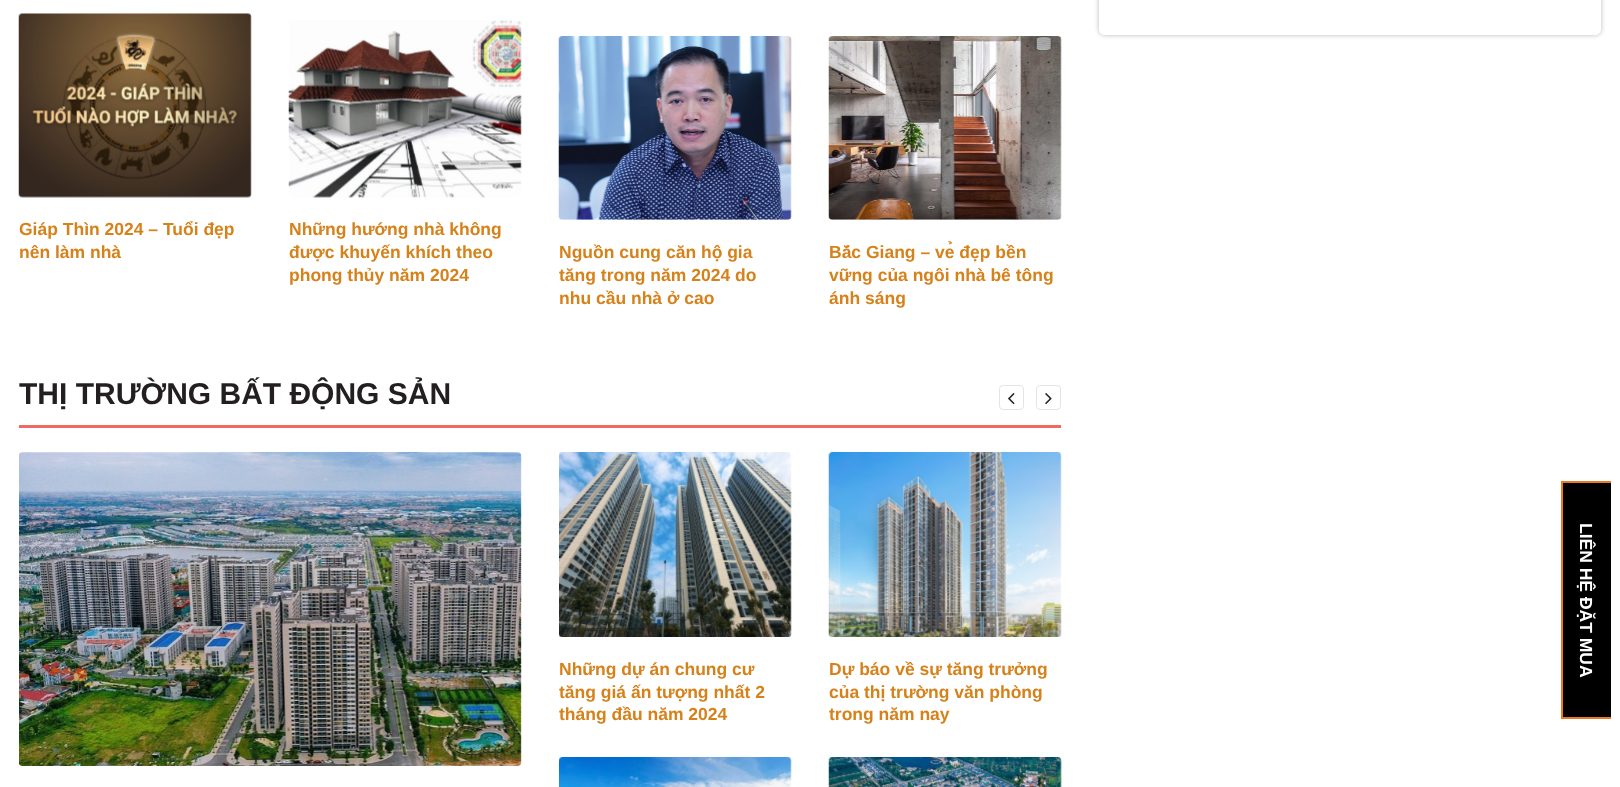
<svg xmlns="http://www.w3.org/2000/svg" width="1620" height="787" viewBox="0 0 1620 787">
  <defs>
    <clipPath id="clip1"><path d="M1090 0H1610V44H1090ZM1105-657H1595C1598.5-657 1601-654.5 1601-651V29C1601 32.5 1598.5 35 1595 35H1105C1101.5 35 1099 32.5 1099 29V-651C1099-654.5 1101.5-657 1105-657Z" clip-rule="evenodd"/></clipPath>
  </defs>
  <rect width="100%" height="100%" fill="#fff"/>
  <g clip-path="url(#clip1)">
    <rect x="1099" y="-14" width="502" height="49" rx="6" fill="#00000047" filter="blur(2.5px)"/>
  </g>
  <image x="18" y="13" width="234" height="185" href="img/1.png"/>
  <image x="288" y="20" width="234" height="178" href="img/2.png"/>
  <image x="558" y="36" width="234" height="184" href="img/3.png"/>
  <image x="828" y="36" width="234" height="184" href="img/4.png"/>
  <path d="M19 425h1042v3H19z" fill="#f26962"/>
  <rect x="999.5" y="385.5" width="24" height="24" rx="3.5" fill="none" stroke="#e4e4e4"/>
  <image x="1008" y="393" width="7" height="12" href="img/5.png"/>
  <rect x="1036.5" y="385.5" width="24" height="24" rx="3.5" fill="none" stroke="#e4e4e4"/>
  <image x="1045" y="393" width="7" height="12" href="img/6.png"/>
  <image x="19" y="452" width="503" height="314" href="img/7.png"/>
  <image x="559" y="452" width="233" height="185" href="img/8.png"/>
  <image x="828" y="452" width="234" height="185" href="img/9.png"/>
  <image x="559" y="757" width="233" height="30" href="img/10.png"/>
  <image x="828" y="757" width="234" height="30" href="img/11.png"/>
  <path d="M1563 483h48v234H1563z" fill="#000"/>
  <path d="M1561 717h50v2H1561z" fill="#eb7724"/>
  <path d="M1561 481h2v238H1561z" fill="#eb7724"/>
  <path d="M1561 481h50v2H1561z" fill="#eb7724"/>
  <g font-family="Liberation Sans" font-size="17.5" font-weight="bold" fill="#d6821b">
    <text x="19" y="235">Giáp Thìn 2024 – Tuổi đẹp</text>
    <text x="19" y="258">nên làm nhà</text>
    <text x="289" y="235">Những hướng nhà không</text>
    <text x="289" y="258">được khuyến khích theo</text>
    <text x="289" y="281">phong thủy năm 2024</text>
    <text x="559" y="258">Nguồn cung căn hộ gia</text>
    <text x="559" y="281">tăng trong năm 2024 do</text>
    <text x="559" y="304">nhu cầu nhà ở cao</text>
    <text x="829" y="258">Bắc Giang – vẻ đẹp bền</text>
    <text x="829" y="281">vững của ngôi nhà bê tông</text>
    <text x="829" y="304">ánh sáng</text>
  </g>
  <text x="19" y="404" font-family="Liberation Sans" font-size="30" font-weight="bold" fill="#231f20">THỊ TRƯỜNG BẤT ĐỘNG SẢN</text>
  <g font-family="Liberation Sans" font-size="17.5" font-weight="bold" fill="#d6821b">
    <text x="559" y="675">Những dự án chung cư</text>
    <text x="559" y="698">tăng giá ấn tượng nhất 2</text>
    <text x="559" y="720">tháng đầu năm 2024</text>
    <text x="829" y="675">Dự báo về sự tăng trưởng</text>
    <text x="829" y="698">của thị trường văn phòng</text>
    <text x="829" y="720">trong năm nay</text>
  </g>
  <text x="1580" y="523" transform="rotate(90 1580 523)" font-family="Liberation Sans" font-size="17.5" font-weight="bold" fill="#fff">LIÊN HỆ ĐẶT MUA</text>
</svg>
